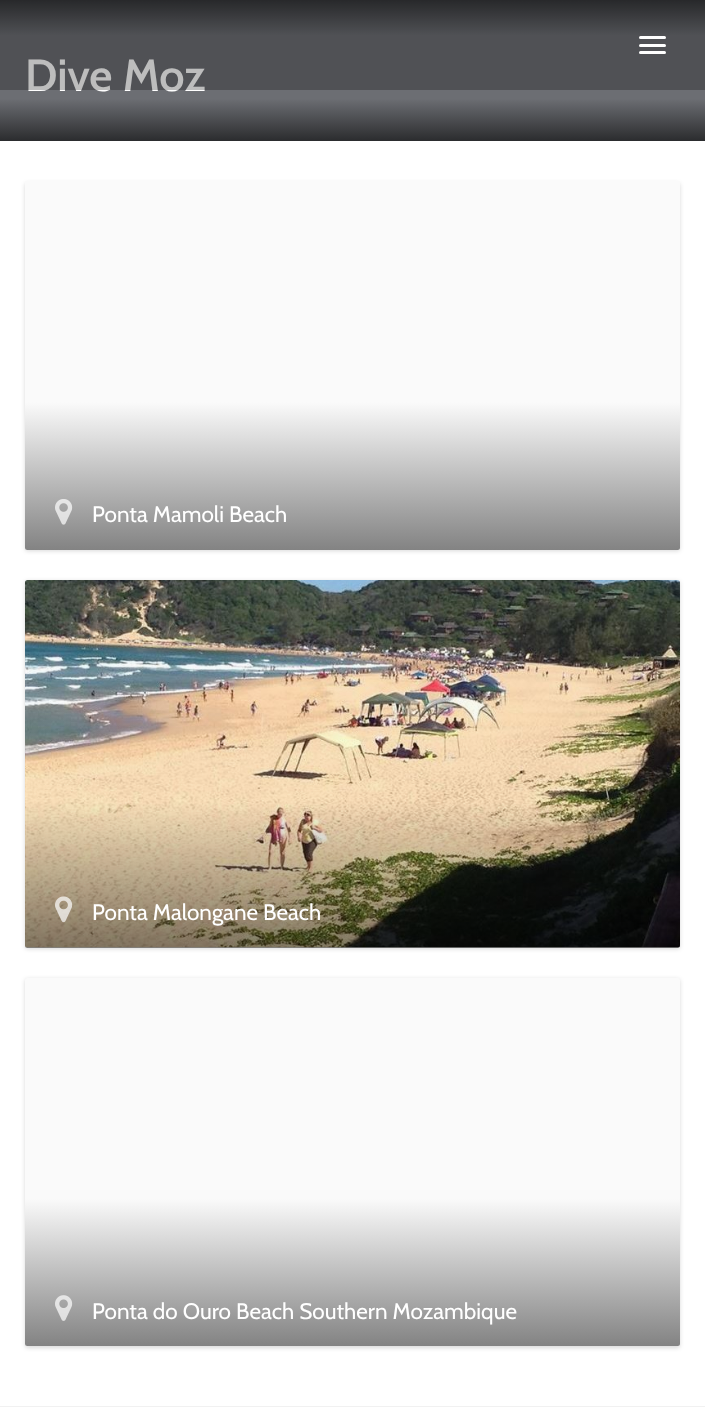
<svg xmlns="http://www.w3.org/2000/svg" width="705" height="1425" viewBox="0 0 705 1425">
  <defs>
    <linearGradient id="g1" gradientUnits="userSpaceOnUse" x1="353" y1="0" x2="353" y2="141"><stop offset="0" stop-color="#36373a"/><stop offset="0.25" stop-color="#6c6e73"/><stop offset="0.7" stop-color="#6c6e73"/><stop offset="1" stop-color="#2b2c2e"/></linearGradient>
    <linearGradient id="g2" gradientUnits="userSpaceOnUse" x1="353" y1="181" x2="353" y2="550"><stop offset="0.6" stop-color="#fafafa"/><stop offset="1" stop-color="#838383"/></linearGradient>
    <linearGradient id="g3" gradientUnits="userSpaceOnUse" x1="353" y1="580" x2="353" y2="948"><stop offset="0.6" stop-color="#000" stop-opacity="0.02"/><stop offset="1" stop-color="#000" stop-opacity="0.49"/></linearGradient>
    <linearGradient id="g4" gradientUnits="userSpaceOnUse" x1="353" y1="978" x2="353" y2="1346"><stop offset="0.6" stop-color="#fafafa"/><stop offset="1" stop-color="#838383"/></linearGradient>
  </defs>
  <rect width="100%" height="100%" fill="#fff"/>
  <path d="M0 0h705v141H0z" fill="url(#g1)"/>
  <rect x="25" y="183" width="655" height="368" rx="2.5" fill="#00000026" filter="blur(2px)"/>
  <rect x="25" y="181" width="655" height="369" rx="2.5" fill="url(#g2)"/>
  <image x="55" y="499" width="18" height="26" href="img/1.png"/>
  <rect x="25" y="581" width="655" height="368" rx="2.5" fill="#00000026" filter="blur(2px)"/>
  <rect x="25" y="580" width="655" height="368" rx="2.5" fill="#fff"/>
  <image x="25" y="580" width="655" height="368" href="img/2.png"/>
  <rect x="25" y="580" width="655" height="368" rx="2.5" fill="url(#g3)"/>
  <image x="55" y="896" width="18" height="27" href="img/3.png"/>
  <rect x="25" y="979" width="655" height="369" rx="2.5" fill="#00000026" filter="blur(2px)"/>
  <rect x="25" y="978" width="655" height="368" rx="2.5" fill="url(#g4)"/>
  <image x="55" y="1295" width="18" height="26" href="img/4.png"/>
  <path d="M0 1406h705v1H0z" fill="#f1f1f1"/>
  <text x="25" y="91" font-family="Cabin" font-size="45" font-weight="600" fill="#fff">Dive Moz</text>
  <path d="M0 0h705v90H0z" fill="#00000042"/>
  <rect x="639" y="51" width="27" height="3" rx="1.5" fill="#fff"/>
  <rect x="639" y="44" width="27" height="3" rx="1.5" fill="#fff"/>
  <rect x="639" y="36" width="27" height="3" rx="1.5" fill="#fff"/>
  <g font-family="Cabin" font-size="22.5" fill="#fff">
    <text x="92" y="522">Ponta Mamoli Beach</text>
    <text x="92" y="920">Ponta Malongane Beach</text>
    <text x="92" y="1319">Ponta do Ouro Beach Southern Mozambique</text>
  </g>
</svg>
